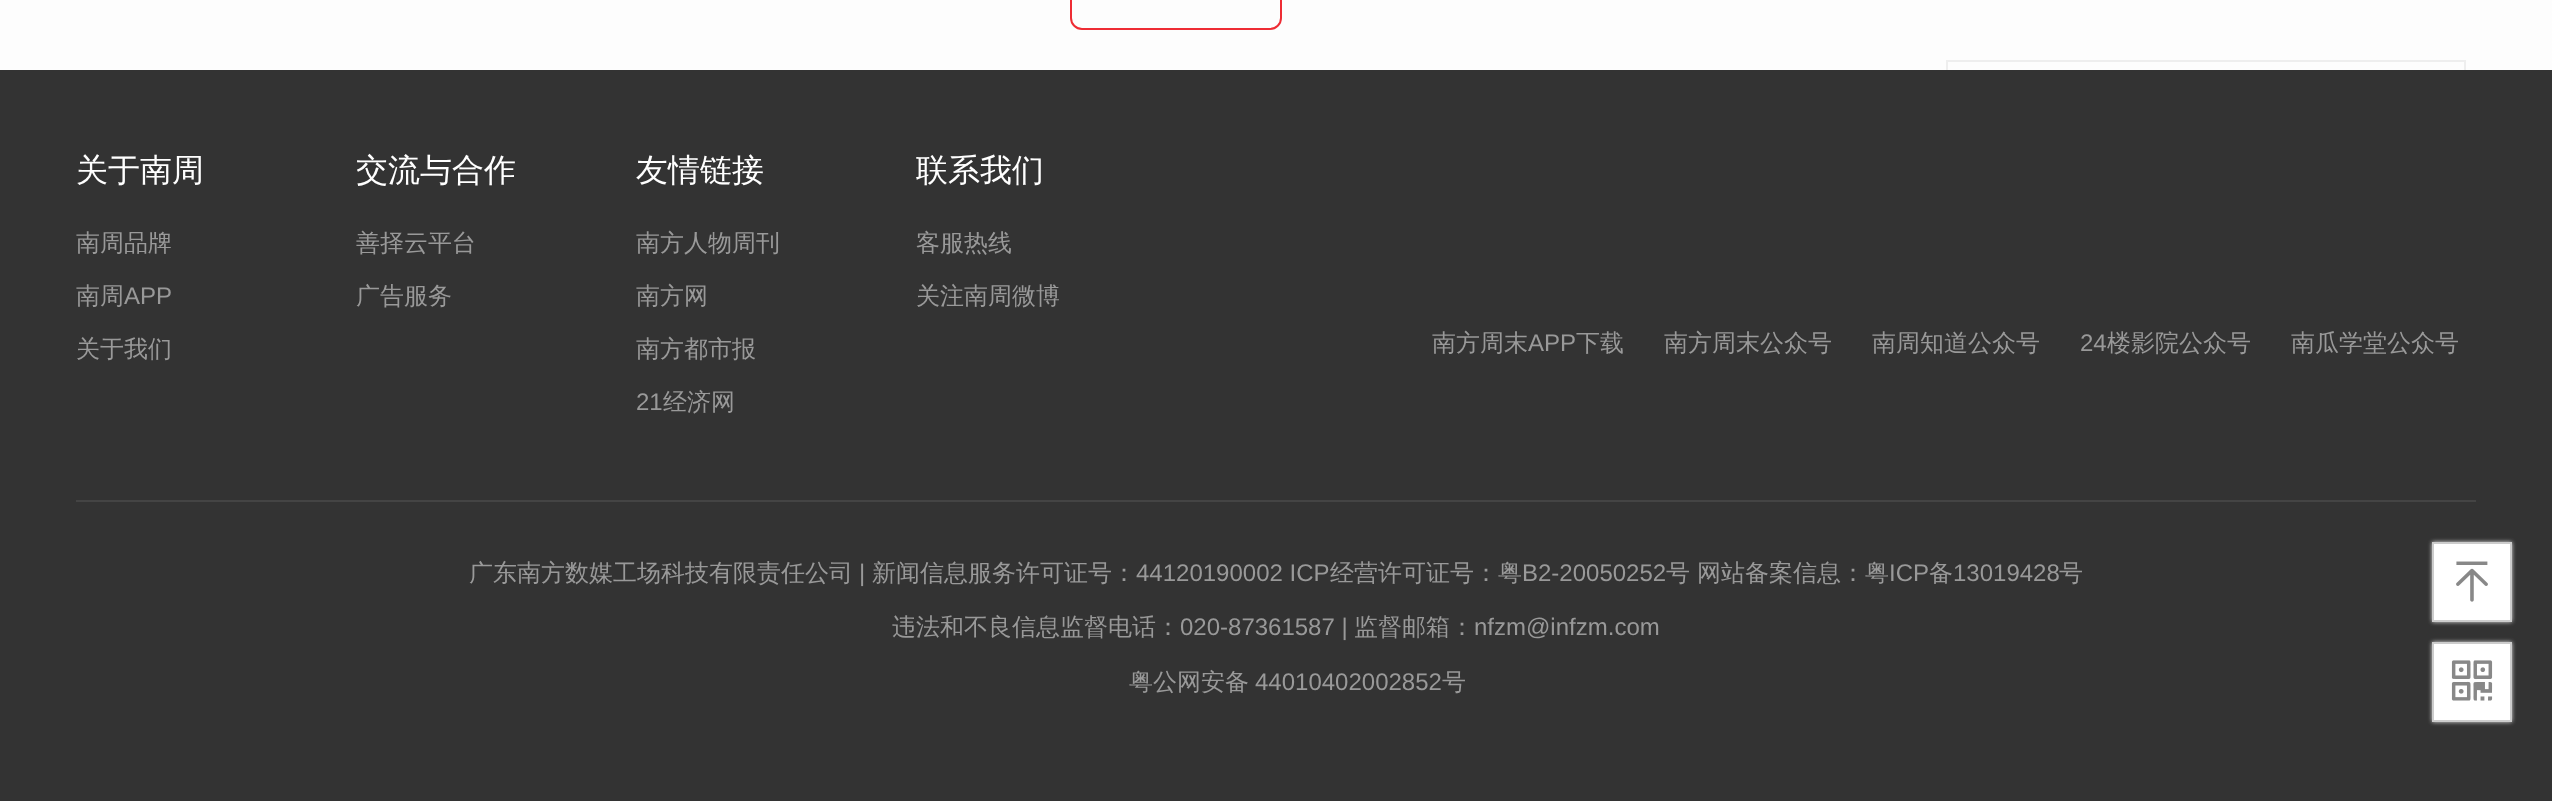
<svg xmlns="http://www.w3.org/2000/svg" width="2552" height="801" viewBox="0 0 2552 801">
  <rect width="100%" height="100%" fill="#fdfdfd"/>
  <rect x="1071" y="-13" width="210" height="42" rx="11" fill="none" stroke="#ee2c34" stroke-width="2"/>
  <path d="M1947 61h518v604H1947z" fill="none" stroke="#eee" stroke-width="2"/>
  <path d="M0 70h2552v731H0z" fill="#333"/>
  <path d="M76 500h2400v2H76z" fill="#444"/>
  <path d="M2432 542h80v80H2432z" fill="#ddd" filter="blur(2px)"/>
  <path d="M2433 543h78v78H2433z" fill="#fff" stroke="#ccc" stroke-width="2"/>
  <image x="2456" y="561" width="32" height="41" href="img/1.png"/>
  <path d="M2432 642h80v80H2432z" fill="#ddd" filter="blur(2px)"/>
  <path d="M2433 643h78v78H2433z" fill="#fff" stroke="#ccc" stroke-width="2"/>
  <image x="2451" y="660" width="42" height="41" href="img/2.png"/>
  <text x="76" y="181" font-family="WenQuanYi Zen Hei" font-size="32" font-weight="500" fill="#fff">关于南周</text>
  <g font-family="WenQuanYi Zen Hei" font-size="24" font-weight="500" fill="#999">
    <text x="76" y="251">南周品牌</text>
    <text x="76" y="304">南周</text>
  </g>
  <text x="124" y="304" font-family="Liberation Sans" font-size="24" fill="#999">APP</text>
  <text x="76" y="357" font-family="WenQuanYi Zen Hei" font-size="24" font-weight="500" fill="#999">关于我们</text>
  <text x="356" y="181" font-family="WenQuanYi Zen Hei" font-size="32" font-weight="500" fill="#fff">交流与合作</text>
  <g font-family="WenQuanYi Zen Hei" font-size="24" font-weight="500" fill="#999">
    <text x="356" y="251">善择云平台</text>
    <text x="356" y="304">广告服务</text>
  </g>
  <text x="636" y="181" font-family="WenQuanYi Zen Hei" font-size="32" font-weight="500" fill="#fff">友情链接</text>
  <g font-family="WenQuanYi Zen Hei" font-size="24" font-weight="500" fill="#999">
    <text x="636" y="251">南方人物周刊</text>
    <text x="636" y="304">南方网</text>
    <text x="636" y="357">南方都市报</text>
  </g>
  <text x="636" y="410" font-family="Liberation Sans" font-size="24" fill="#999">21</text>
  <text x="663" y="410" font-family="WenQuanYi Zen Hei" font-size="24" font-weight="500" fill="#999">经济网</text>
  <text x="916" y="181" font-family="WenQuanYi Zen Hei" font-size="32" font-weight="500" fill="#fff">联系我们</text>
  <g font-family="WenQuanYi Zen Hei" font-size="24" font-weight="500" fill="#999">
    <text x="916" y="251">客服热线</text>
    <text x="916" y="304">关注南周微博</text>
    <text x="1432" y="351">南方周末</text>
  </g>
  <text x="1528" y="351" font-family="Liberation Sans" font-size="24" fill="#999">APP</text>
  <g font-family="WenQuanYi Zen Hei" font-size="24" font-weight="500" fill="#999">
    <text x="1576" y="351">下载</text>
    <text x="1664" y="351">南方周末公众号</text>
    <text x="1872" y="351">南周知道公众号</text>
  </g>
  <text x="2080" y="351" font-family="Liberation Sans" font-size="24" fill="#999">24</text>
  <g font-family="WenQuanYi Zen Hei" font-size="24" font-weight="500" fill="#999">
    <text x="2107" y="351">楼影院公众号</text>
    <text x="2291" y="351">南瓜学堂公众号</text>
    <text x="469" y="581">广东南方数媒工场科技有限责任公司</text>
  </g>
  <text x="859" y="581" font-family="Liberation Sans" font-size="24" fill="#999">|</text>
  <text x="872" y="581" font-family="WenQuanYi Zen Hei" font-size="24" font-weight="500" fill="#999">新闻信息服务许可证号：</text>
  <text x="1136" y="581" font-family="Liberation Sans" font-size="24" fill="#999">44120190002 ICP</text>
  <text x="1330" y="581" font-family="WenQuanYi Zen Hei" font-size="24" font-weight="500" fill="#999">经营许可证号：粤</text>
  <text x="1522" y="581" font-family="Liberation Sans" font-size="24" fill="#999">B2-20050252</text>
  <g font-family="WenQuanYi Zen Hei" font-size="24" font-weight="500" fill="#999">
    <text x="1666" y="581">号</text>
    <text x="1697" y="581">网站备案信息：粤</text>
  </g>
  <text x="1889" y="581" font-family="Liberation Sans" font-size="24" fill="#999">ICP</text>
  <text x="1929" y="581" font-family="WenQuanYi Zen Hei" font-size="24" font-weight="500" fill="#999">备</text>
  <text x="1953" y="581" font-family="Liberation Sans" font-size="24" fill="#999">13019428</text>
  <g font-family="WenQuanYi Zen Hei" font-size="24" font-weight="500" fill="#999">
    <text x="2059" y="581">号</text>
    <text x="892" y="635">违法和不良信息监督电话：</text>
  </g>
  <text x="1180" y="635" font-family="Liberation Sans" font-size="24" fill="#999">020-87361587 |</text>
  <text x="1354" y="635" font-family="WenQuanYi Zen Hei" font-size="24" font-weight="500" fill="#999">监督邮箱：</text>
  <text x="1474" y="635" font-family="Liberation Sans" font-size="24" fill="#999">nfzm@infzm.com</text>
  <text x="1129" y="690" font-family="WenQuanYi Zen Hei" font-size="24" font-weight="500" fill="#999">粤公网安备</text>
  <text x="1255" y="690" font-family="Liberation Sans" font-size="24" fill="#999">44010402002852</text>
  <text x="1442" y="690" font-family="WenQuanYi Zen Hei" font-size="24" font-weight="500" fill="#999">号</text>
</svg>
